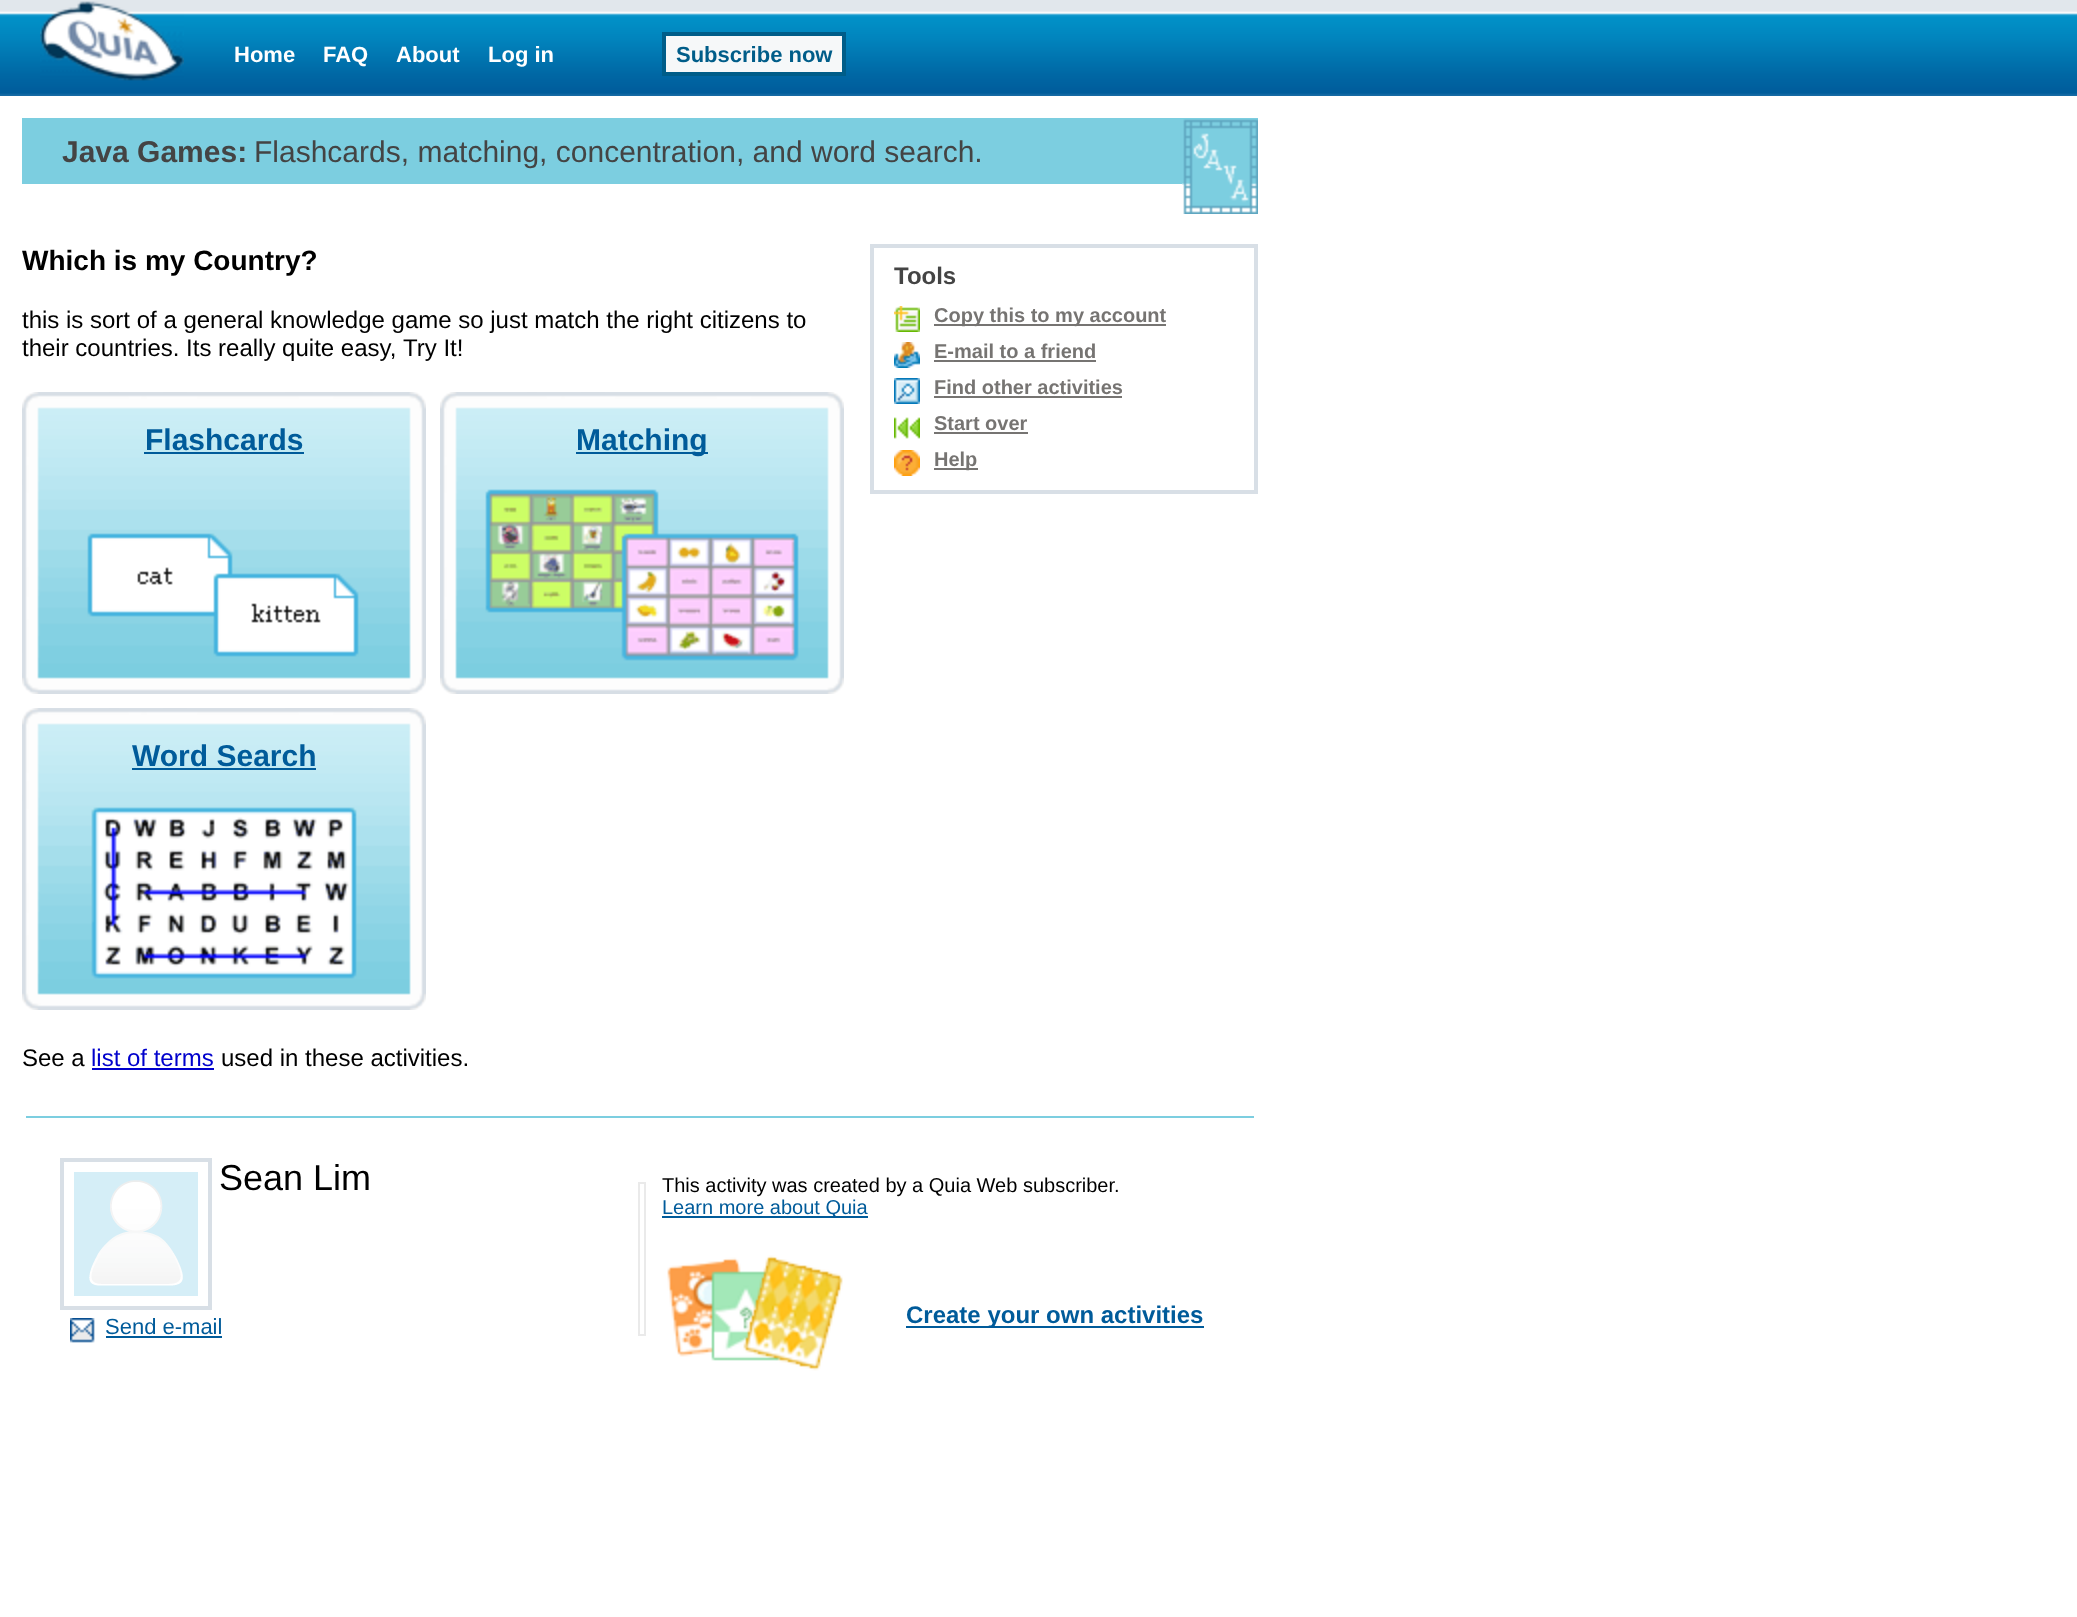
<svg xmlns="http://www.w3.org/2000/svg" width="2077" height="1617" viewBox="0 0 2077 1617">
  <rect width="100%" height="100%" fill="#fff"/>
  <image x="0" y="0" width="2077" height="96" href="img/1.png"/>
  <image x="40" y="1" width="144" height="80" href="img/2.png"/>
  <path d="M664 34h180v40H664z" fill="#f6f8f9" stroke="#005d89" stroke-width="4"/>
  <path d="M22 118h1236v66H22z" fill="#7ccee0"/>
  <image x="1182" y="119" width="76" height="95" href="img/3.png"/>
  <path d="M872 246h384v246H872z" fill="none" stroke="#d8dfe6" stroke-width="4"/>
  <image x="894" y="306" width="26" height="26" href="img/4.png"/>
  <path d="M934 324h232v2H934z" fill="#767472"/>
  <image x="894" y="342" width="26" height="26" href="img/5.png"/>
  <path d="M934 360h162v2H934z" fill="#767472"/>
  <image x="894" y="378" width="26" height="26" href="img/6.png"/>
  <path d="M934 396h188v2H934z" fill="#767472"/>
  <image x="894" y="417" width="26" height="22" href="img/7.png"/>
  <path d="M934 432h94v2H934z" fill="#767472"/>
  <image x="894" y="450" width="26" height="26" href="img/8.png"/>
  <path d="M934 468h44v2H934z" fill="#767472"/>
  <image x="22" y="392" width="404" height="302" href="img/9.png"/>
  <path d="M144 452h160v2H144z" fill="#005b9a"/>
  <image x="440" y="392" width="404" height="302" href="img/10.png"/>
  <path d="M576 452h132v2H576z" fill="#005b9a"/>
  <image x="22" y="708" width="404" height="302" href="img/11.png"/>
  <path d="M132 768h184v2H132z" fill="#005b9a"/>
  <path d="M92 1068h122v2H92z" fill="#00c"/>
  <path d="M26 1116h1228v2H26z" fill="#7ccee0"/>
  <path d="M62 1160h148v148H62z" fill="none" stroke="#d8dfe6" stroke-width="4"/>
  <image x="74" y="1172" width="124" height="124" href="img/12.png"/>
  <image x="70" y="1318" width="25" height="25" href="img/13.png"/>
  <path d="M106 1336h116v2H106z" fill="#005b9a"/>
  <path d="M639 1183h6v152H639z" fill="none" stroke="#eaeaea" stroke-width="2"/>
  <path d="M662 1216h206v2H662z" fill="#005b9a"/>
  <image x="667" y="1255" width="176" height="116" href="img/14.png"/>
  <path d="M906 1326h298v2H906z" fill="#005b9a"/>
  <g font-family="Liberation Sans" font-size="22" font-weight="bold" fill="#fff">
    <text x="234" y="62">Home</text>
    <text x="323" y="62">FAQ</text>
    <text x="396" y="62">About</text>
    <text x="488" y="62">Log in</text>
  </g>
  <text x="676" y="62" font-family="Liberation Sans" font-size="22" font-weight="bold" fill="#005d89">Subscribe now</text>
  <text x="62" y="162" font-family="Liberation Sans" font-size="30" font-weight="bold" fill="#444">Java Games:</text>
  <text x="254" y="162" font-family="Liberation Sans" font-size="30" fill="#444">Flashcards, matching, concentration, and word search.</text>
  <text x="22" y="270" font-family="Liberation Sans" font-size="28" font-weight="bold" fill="#000">Which is my Country?</text>
  <g font-family="Liberation Sans" font-size="24" fill="#000">
    <text x="22" y="328">this is sort of a general knowledge game so just match the right citizens to</text>
    <text x="22" y="356">their countries. Its really quite easy,</text>
    <text x="403" y="356">Try It!</text>
  </g>
  <text x="894" y="284" font-family="Liberation Sans" font-size="24" font-weight="bold" fill="#444">Tools</text>
  <g font-family="Liberation Sans" font-size="20" font-weight="bold" fill="#767472">
    <text x="934" y="322">Copy this to my account</text>
    <text x="934" y="358">E-mail to a friend</text>
    <text x="934" y="394">Find other activities</text>
    <text x="934" y="430">Start over</text>
    <text x="934" y="466">Help</text>
  </g>
  <g font-family="Liberation Sans" font-size="30" font-weight="bold" fill="#005b9a">
    <text x="145" y="450">Flashcards</text>
    <text x="576" y="450">Matching</text>
    <text x="132" y="766">Word Search</text>
  </g>
  <text x="22" y="1066" font-family="Liberation Sans" font-size="24" fill="#000">See a</text>
  <text x="91" y="1066" font-family="Liberation Sans" font-size="24" fill="#00c">list of terms</text>
  <text x="221" y="1066" font-family="Liberation Sans" font-size="24" fill="#000">used in these activities.</text>
  <text x="219" y="1190" font-family="Liberation Sans" font-size="36" fill="#000">Sean Lim</text>
  <text x="105" y="1334" font-family="Liberation Sans" font-size="22" fill="#005b9a">Send e-mail</text>
  <text x="662" y="1192" font-family="Liberation Sans" font-size="20" fill="#000">This activity was created by a Quia Web subscriber.</text>
  <text x="662" y="1214" font-family="Liberation Sans" font-size="20" fill="#005b9a">Learn more about Quia</text>
  <text x="906" y="1323" font-family="Liberation Sans" font-size="24" font-weight="bold" fill="#005b9a">Create your own activities</text>
</svg>
